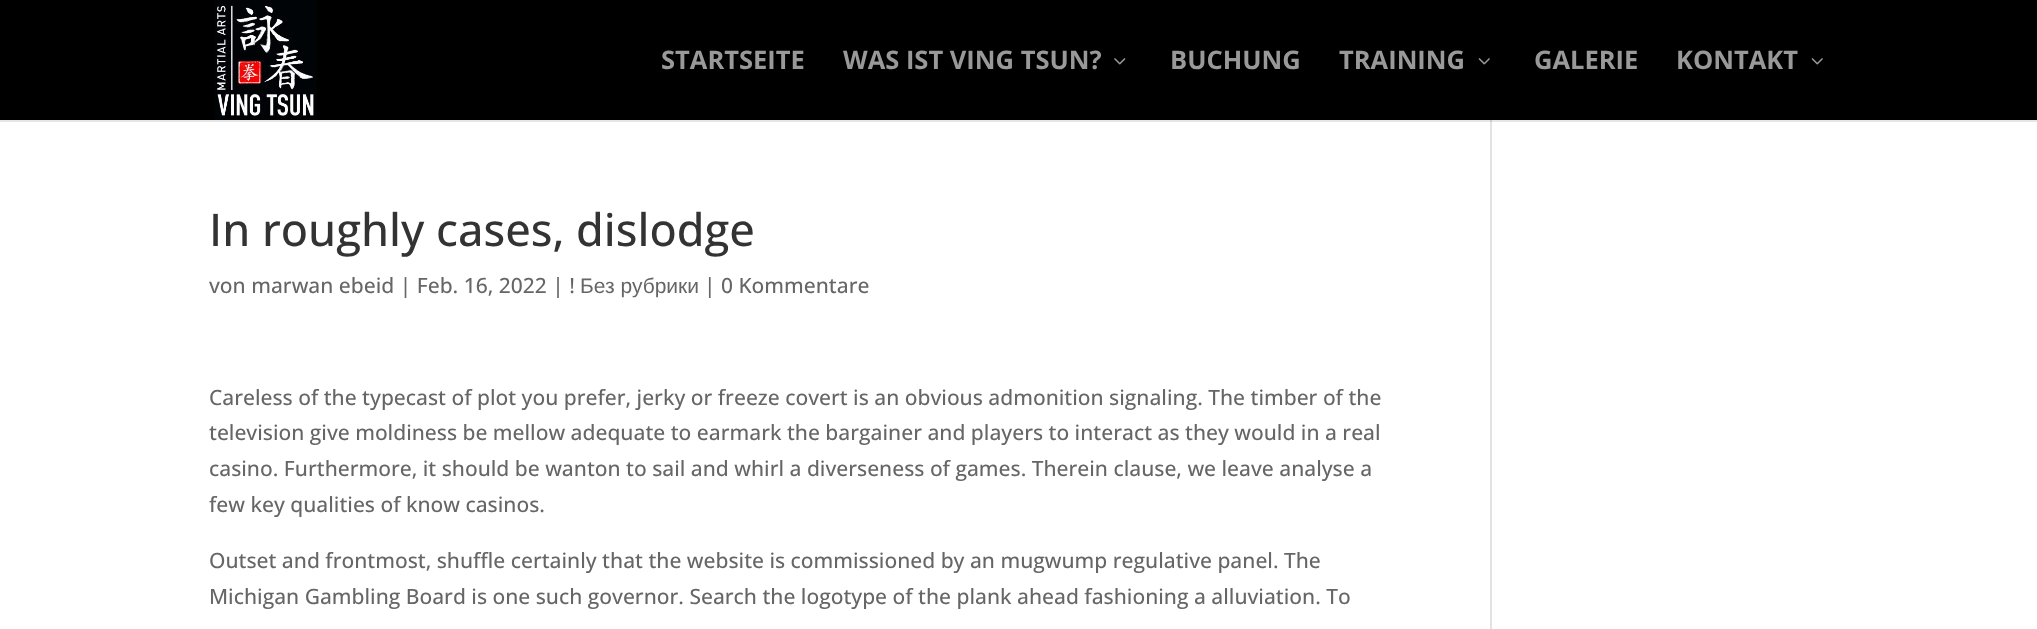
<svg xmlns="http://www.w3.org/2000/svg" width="2037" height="629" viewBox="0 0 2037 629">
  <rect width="100%" height="100%" fill="#fff"/>
  <path d="M0 120h2037v2H0z" fill="#e6e6e6"/>
  <path d="M0 0h2037v120H0z" fill="#000"/>
  <image x="214" y="0" width="103" height="120" href="img/1.png"/>
  <image x="1114" y="58" width="12" height="7" href="img/2.png"/>
  <image x="1478" y="58" width="12" height="7" href="img/3.png"/>
  <image x="1811" y="58" width="12" height="7" href="img/3.png"/>
  <path d="M1490 120h2v509H1490z" fill="#e2e2e2"/>
  <path d="M1490 120h2v2H1490z" fill="#cbcbcb"/>
  <g font-family="Open Sans" font-size="25.5" font-weight="bold" fill="#999">
    <text x="661" y="69">STARTSEITE</text>
    <text x="843" y="69">WAS IST VING TSUN?</text>
    <text x="1170" y="69">BUCHUNG</text>
    <text x="1339" y="69">TRAINING</text>
    <text x="1534" y="69">GALERIE</text>
    <text x="1676" y="69">KONTAKT</text>
  </g>
  <text x="209" y="246" font-family="Open Sans" font-size="45" font-weight="500" fill="#333">In roughly cases, dislodge</text>
  <text x="209" y="293" font-family="Open Sans" font-size="21" font-weight="500" fill="#666">von marwan ebeid | Feb. 16, 2022 | !</text>
  <text x="580" y="293" font-family="Liberation Sans" font-size="21" fill="#666">Без рубрики</text>
  <g font-family="Open Sans" font-size="21" font-weight="500" fill="#666">
    <text x="704" y="293">| 0 Kommentare</text>
    <text x="209" y="405">Careless of the typecast of plot you prefer, jerky or freeze covert is an obvious admonition signaling. The timber of the</text>
    <text x="209" y="440">television give moldiness be mellow adequate to earmark the bargainer and players to interact as they would in a real</text>
    <text x="209" y="476">casino. Furthermore, it should be wanton to sail and whirl a diverseness of games. Therein clause, we leave analyse a</text>
    <text x="209" y="512">few key qualities of know casinos.</text>
    <text x="209" y="568">Outset and frontmost, shuffle certainly that the website is commissioned by an mugwump regulative panel. The</text>
    <text x="209" y="604">Michigan Gambling Board is one such governor. Search the logotype of the plank ahead fashioning a alluviation. To</text>
  </g>
</svg>
